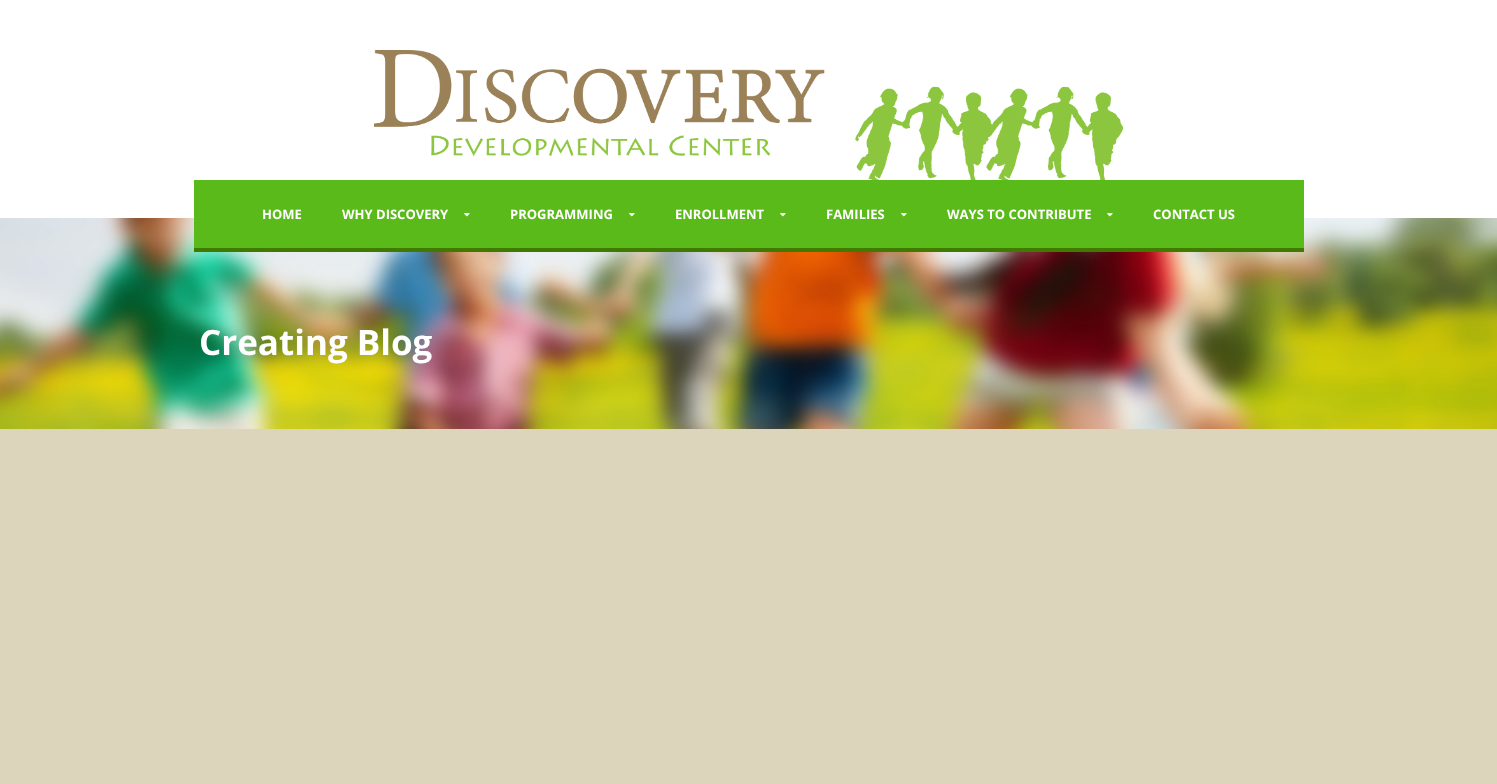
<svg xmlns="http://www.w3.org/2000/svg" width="1497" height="784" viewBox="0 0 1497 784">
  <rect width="100%" height="100%" fill="#ddd4bc"/>
  <path d="M0 0h1497v218H0z" fill="#fff"/>
  <image x="374" y="50" width="749" height="130" href="img/1.png"/>
  <image x="0" y="218" width="1497" height="211" href="img/3.png"/>
  <path d="M194 180h1110v68H194z" fill="#5aba1a"/>
  <path d="M194 248h1110v4H194z" fill="#417a00"/>
  <image x="464" y="213" width="6" height="4" href="img/2.png"/>
  <image x="629" y="213" width="6" height="4" href="img/2.png"/>
  <image x="780" y="213" width="6" height="4" href="img/2.png"/>
  <image x="901" y="213" width="6" height="4" href="img/2.png"/>
  <image x="1107" y="213" width="6" height="4" href="img/2.png"/>
  <g font-family="Open Sans" font-size="13" font-weight="bold" fill="#fff">
    <text x="262" y="219">HOME</text>
    <text x="342" y="219">WHY DISCOVERY</text>
    <text x="510" y="219">PROGRAMMING</text>
    <text x="675" y="219">ENROLLMENT</text>
    <text x="826" y="219">FAMILIES</text>
    <text x="947" y="219">WAYS TO CONTRIBUTE</text>
    <text x="1153" y="219">CONTACT US</text>
  </g>
  <text x="199" y="355" font-family="Open Sans" font-size="35" font-weight="bold" fill="#fff">Creating Blog</text>
</svg>
